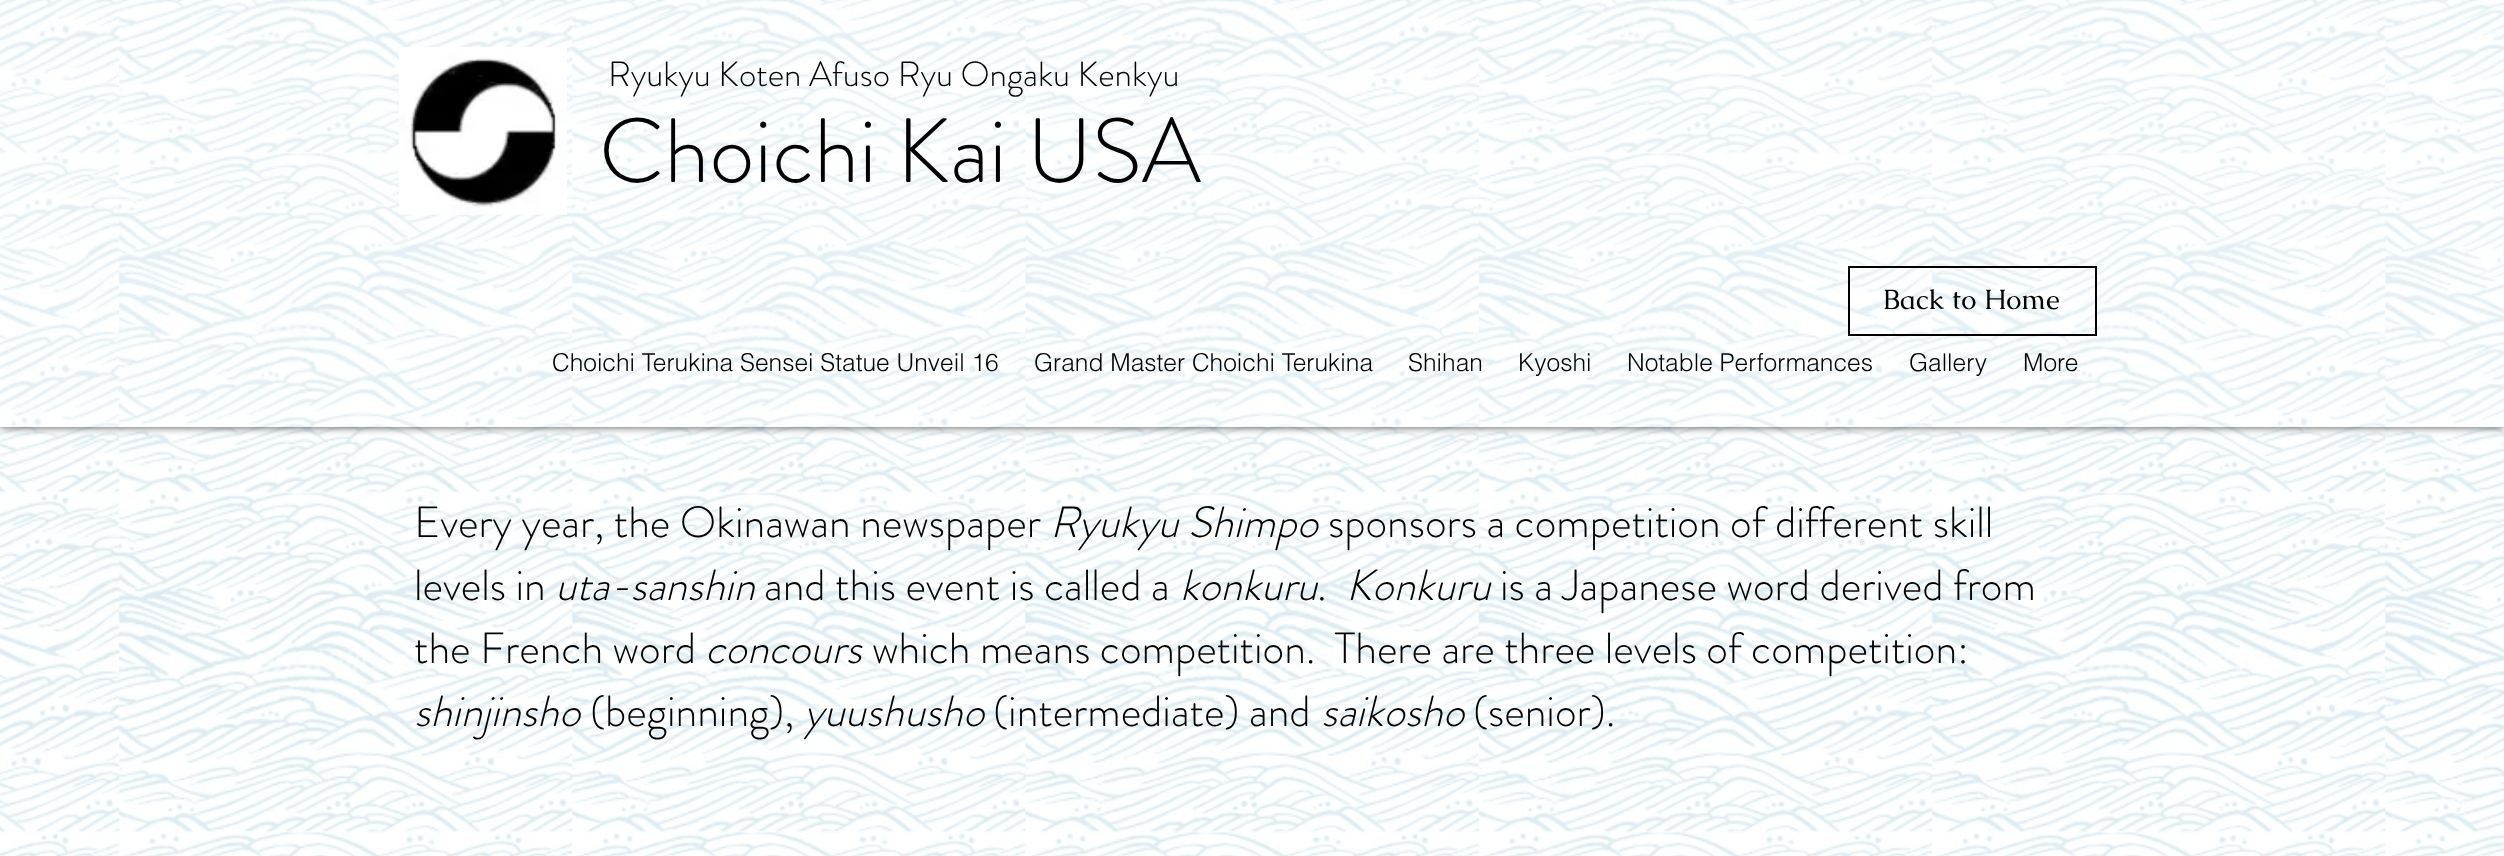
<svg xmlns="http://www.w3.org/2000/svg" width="2504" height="856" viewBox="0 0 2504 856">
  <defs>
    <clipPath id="clip1"><path d="M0 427h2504v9H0z"/></clipPath>
  </defs>
  <rect width="100%" height="100%" fill="#fff"/>
  <image x="0" y="0" width="2504" height="856" href="img/1.png"/>
  <g clip-path="url(#clip1)">
    <path d="M0 -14h2504v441H0z" fill="#000000b3" filter="blur(4.5px)"/>
  </g>
  <path d="M0 0h2504v427H0z" fill="#ffffff33"/>
  <image x="399" y="47" width="168" height="168" href="img/2.png"/>
  <path d="M1849 267h247v68H1849z" fill="none" stroke="#000" stroke-width="2"/>
  <text x="608" y="86" font-family="'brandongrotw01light'" font-size="35" font-weight="300" fill="#000">Ryukyu Koten Afuso Ryu Ongaku Kenkyu</text>
  <text x="599" y="182" font-family="'brandongrotw01light'" font-size="91" font-weight="300" fill="#000">Choichi Kai USA</text>
  <text x="1883" y="309" font-family="Caudex" font-size="28" fill="#000">Back to Home</text>
  <g font-family="helvetica" font-size="24.5" font-weight="300" fill="#000">
    <text x="552" y="371">Choichi Terukina Sensei Statue Unveil 16</text>
    <text x="1034" y="371">Grand Master Choichi Terukina</text>
    <text x="1408" y="371">Shihan</text>
    <text x="1518" y="371">Kyoshi</text>
    <text x="1627" y="371">Notable Performances</text>
    <text x="1909" y="371">Gallery</text>
    <text x="2023" y="371">More</text>
  </g>
  <text x="414" y="537" font-family="'brandongrotw01light'" font-size="43.75" font-weight="300" fill="#000">Every year, the Okinawan newspaper</text>
  <text x="1050" y="537" font-family="'brandongrotw01light'" font-size="43.75" font-weight="300" font-style="italic" fill="#000">Ryukyu Shimpo</text>
  <g font-family="'brandongrotw01light'" font-size="43.75" font-weight="300" fill="#000">
    <text x="1328" y="537">sponsors a competition of different skill</text>
    <text x="414" y="600">levels in</text>
  </g>
  <text x="555" y="600" font-family="'brandongrotw01light'" font-size="43.75" font-weight="300" font-style="italic" fill="#000">uta-sanshin</text>
  <text x="764" y="600" font-family="'brandongrotw01light'" font-size="43.75" font-weight="300" fill="#000">and this event is called a</text>
  <text x="1180" y="600" font-family="'brandongrotw01light'" font-size="43.75" font-weight="300" font-style="italic" fill="#000">konkuru</text>
  <text x="1317" y="600" font-family="'brandongrotw01light'" font-size="43.75" font-weight="300" fill="#000">.</text>
  <text x="1346" y="600" font-family="'brandongrotw01light'" font-size="43.75" font-weight="300" font-style="italic" fill="#000">Konkuru</text>
  <g font-family="'brandongrotw01light'" font-size="43.75" font-weight="300" fill="#000">
    <text x="1500" y="600">is a Japanese word derived from</text>
    <text x="414" y="663">the French word</text>
  </g>
  <text x="705" y="663" font-family="'brandongrotw01light'" font-size="43.75" font-weight="300" font-style="italic" fill="#000">concours</text>
  <text x="872" y="663" font-family="'brandongrotw01light'" font-size="43.75" font-weight="300" fill="#000" xml:space="preserve">which means competition.  There are three levels of competition:</text>
  <text x="414" y="726" font-family="'brandongrotw01light'" font-size="43.75" font-weight="300" font-style="italic" fill="#000">shinjinsho</text>
  <text x="590" y="726" font-family="'brandongrotw01light'" font-size="43.75" font-weight="300" fill="#000">(beginning),</text>
  <text x="804" y="726" font-family="'brandongrotw01light'" font-size="43.75" font-weight="300" font-style="italic" fill="#000">yuushusho</text>
  <text x="993" y="726" font-family="'brandongrotw01light'" font-size="43.75" font-weight="300" fill="#000">(intermediate) and</text>
  <text x="1321" y="726" font-family="'brandongrotw01light'" font-size="43.75" font-weight="300" font-style="italic" fill="#000">saikosho</text>
  <text x="1473" y="726" font-family="'brandongrotw01light'" font-size="43.75" font-weight="300" fill="#000">(senior).</text>
</svg>
